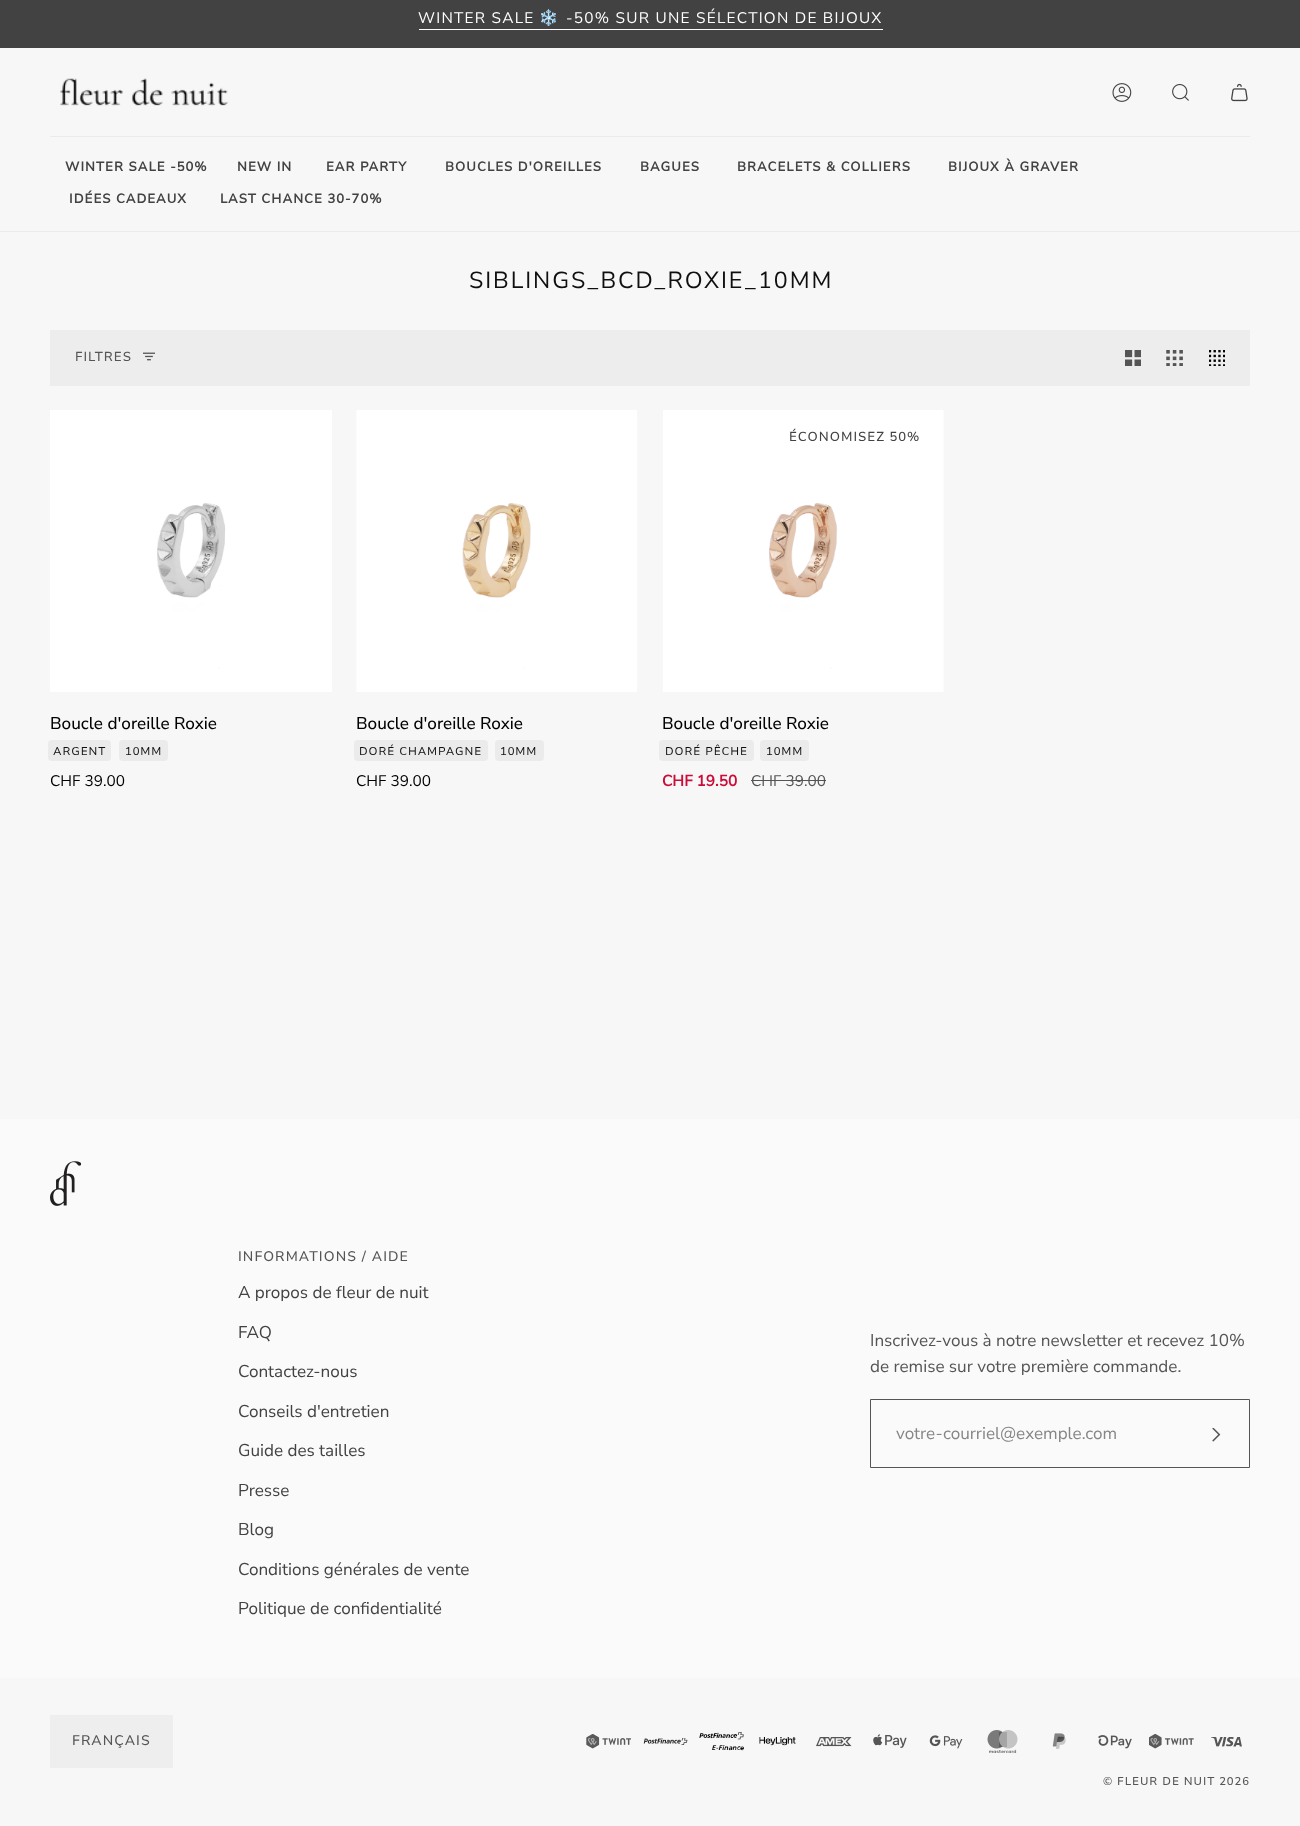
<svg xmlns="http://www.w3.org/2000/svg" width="1300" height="1826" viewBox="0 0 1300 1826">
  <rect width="100%" height="100%" fill="#f7f7f7"/>
  <path d="M0 0h1300v48H0z" fill="#424242"/>
  <path d="M419 29h464v1H419z" fill="#fff"/>
  <path d="M0 231h1300v1H0z" fill="#ebebeb"/>
  <path d="M50 136h1200v1H50z" fill="#ebebeb"/>
  <image x="60" y="78" width="168" height="28" href="img/1.png"/>
  <image x="1112" y="83" width="20" height="19" href="img/2.png"/>
  <image x="1172" y="84" width="17" height="17" href="img/3.png"/>
  <image x="1231" y="83" width="17" height="19" href="img/4.png"/>
  <path d="M50 330h1200v56H50z" fill="#ededed"/>
  <image x="143" y="352" width="12" height="9" href="img/5.png"/>
  <image x="1125" y="350" width="16" height="16" href="img/6.png"/>
  <image x="1166" y="350" width="17" height="16" href="img/7.png"/>
  <image x="1209" y="350" width="16" height="16" href="img/8.png"/>
  <image x="50" y="410" width="282" height="282" href="img/9.png"/>
  <rect x="48" y="740" width="63" height="21" rx="4" fill="#ebebeb"/>
  <rect x="119" y="740" width="49" height="21" rx="4" fill="#ebebeb"/>
  <image x="356" y="410" width="281" height="282" href="img/10.png"/>
  <rect x="354" y="740" width="134" height="21" rx="4" fill="#ebebeb"/>
  <rect x="495" y="740" width="49" height="21" rx="4" fill="#ebebeb"/>
  <image x="663" y="410" width="281" height="282" href="img/11.png"/>
  <rect x="659" y="740" width="95" height="21" rx="4" fill="#ebebeb"/>
  <rect x="760" y="740" width="49" height="21" rx="4" fill="#ebebeb"/>
  <path d="M751 780h75v1H751z" fill="#555"/>
  <path d="M0 1119h1300v559H0z" fill="#fafafa"/>
  <image x="50" y="1161" width="31" height="45" href="img/12.png"/>
  <path d="M870.5 1399.5h379v68H870.5z" fill="none" stroke="#545454"/>
  <image x="1212" y="1428" width="9" height="14" href="img/13.png"/>
  <path d="M50 1715h123v53H50z" fill="#eee"/>
  <image x="586" y="1734" width="45" height="15" href="img/14.png"/>
  <image x="643" y="1738" width="45" height="7" href="img/15.png"/>
  <image x="699" y="1732" width="45" height="19" href="img/16.png"/>
  <image x="759" y="1737" width="37" height="9" href="img/17.png"/>
  <image x="816" y="1737" width="36" height="10" href="img/18.png"/>
  <image x="873" y="1734" width="34" height="14" href="img/19.png"/>
  <image x="929" y="1735" width="34" height="14" href="img/20.png"/>
  <image x="987" y="1730" width="31" height="23" href="img/21.png"/>
  <image x="1052" y="1733" width="14" height="16" href="img/22.png"/>
  <image x="1098" y="1735" width="34" height="14" href="img/23.png"/>
  <image x="1149" y="1734" width="45" height="15" href="img/24.png"/>
  <image x="1211" y="1737" width="31" height="10" href="img/25.png"/>
  <text x="418" y="23" font-family="Nunito Sans" font-size="15.4" letter-spacing="1.25" fill="#fff">WINTER SALE</text>
  <text x="539" y="23" font-family="Noto Color Emoji" font-size="15.4" letter-spacing="1.25" fill="#fff">❄️</text>
  <text x="566" y="23" font-family="Nunito Sans" font-size="15.4" letter-spacing="1.25" fill="#fff">-50% SUR UNE SÉLECTION DE BIJOUX</text>
  <g font-family="'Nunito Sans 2'" font-size="13" font-weight="bold" letter-spacing="1" fill="#424242">
    <text x="65" y="171">WINTER SALE -50%</text>
    <text x="237" y="171">NEW IN</text>
    <text x="326" y="171">EAR PARTY</text>
    <text x="445" y="171">BOUCLES D'OREILLES</text>
    <text x="640" y="171">BAGUES</text>
    <text x="737" y="171">BRACELETS &amp; COLLIERS</text>
    <text x="948" y="171">BIJOUX À GRAVER</text>
    <text x="69" y="203">IDÉES CADEAUX</text>
    <text x="220" y="203">LAST CHANCE 30-70%</text>
  </g>
  <text x="469" y="288" font-family="Nunito Sans" font-size="23.25" letter-spacing="1.9" fill="#0f0f0f">SIBLINGS_BCD_ROXIE_10MM</text>
  <text x="75" y="361" font-family="Nunito Sans" font-size="13" font-weight="500" letter-spacing="1" fill="#555">FILTRES</text>
  <text x="50" y="729" font-family="'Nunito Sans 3'" font-size="17.1" font-weight="500" fill="#000">Boucle d'oreille Roxie</text>
  <g font-family="'Nunito Sans 2'" font-size="11.25" letter-spacing="0.9" fill="#0f0f0f">
    <text x="53" y="755">ARGENT</text>
    <text x="125" y="755">10MM</text>
  </g>
  <text x="50" y="786" font-family="Nunito Sans" font-size="15.4" fill="#000">CHF 39.00</text>
  <text x="356" y="729" font-family="'Nunito Sans 3'" font-size="17.1" font-weight="500" fill="#000">Boucle d'oreille Roxie</text>
  <g font-family="'Nunito Sans 2'" font-size="11.25" letter-spacing="0.9" fill="#0f0f0f">
    <text x="359" y="755">DORÉ CHAMPAGNE</text>
    <text x="500" y="755">10MM</text>
  </g>
  <text x="356" y="786" font-family="Nunito Sans" font-size="15.4" fill="#000">CHF 39.00</text>
  <text x="789" y="441" font-family="Nunito Sans" font-size="13" font-weight="500" letter-spacing="1" fill="#424242">ÉCONOMISEZ 50%</text>
  <text x="662" y="729" font-family="'Nunito Sans 3'" font-size="17.1" font-weight="500" fill="#000">Boucle d'oreille Roxie</text>
  <g font-family="'Nunito Sans 2'" font-size="11.25" letter-spacing="0.9" fill="#0f0f0f">
    <text x="665" y="755">DORÉ PÊCHE</text>
    <text x="766" y="755">10MM</text>
  </g>
  <text x="662" y="786" font-family="Nunito Sans" font-size="15.4" font-weight="bold" fill="#cc0b39">CHF 19.50</text>
  <text x="751" y="786" font-family="Nunito Sans" font-size="15.4" fill="#555">CHF 39.00</text>
  <text x="238" y="1261" font-family="'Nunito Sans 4'" font-size="13.9" font-weight="500" letter-spacing="1.1" fill="#555">INFORMATIONS / AIDE</text>
  <g font-family="Nunito Sans" font-size="17.1" fill="#424242">
    <text x="238" y="1298">A propos de fleur de nuit</text>
    <text x="238" y="1338">FAQ</text>
    <text x="238" y="1377">Contactez-nous</text>
    <text x="238" y="1417">Conseils d'entretien</text>
    <text x="238" y="1456">Guide des tailles</text>
    <text x="238" y="1496">Presse</text>
    <text x="238" y="1535">Blog</text>
    <text x="238" y="1575">Conditions générales de vente</text>
    <text x="238" y="1614">Politique de confidentialité</text>
  </g>
  <g font-family="Nunito Sans" font-size="17.1" fill="#555">
    <text x="870" y="1346">Inscrivez-vous à notre newsletter et recevez 10%</text>
    <text x="870" y="1372">de remise sur votre première commande.</text>
  </g>
  <text x="896" y="1439" font-family="Nunito Sans" font-size="17.1" fill="#868686">votre-courriel@exemple.com</text>
  <text x="72" y="1745" font-family="'Nunito Sans 4'" font-size="13.9" font-weight="500" letter-spacing="1.1" fill="#555">FRANÇAIS</text>
  <text x="1103" y="1785" font-family="'Nunito Sans 2'" font-size="11.25" font-weight="500" letter-spacing="0.9" fill="#555">© FLEUR DE NUIT 2026</text>
</svg>
